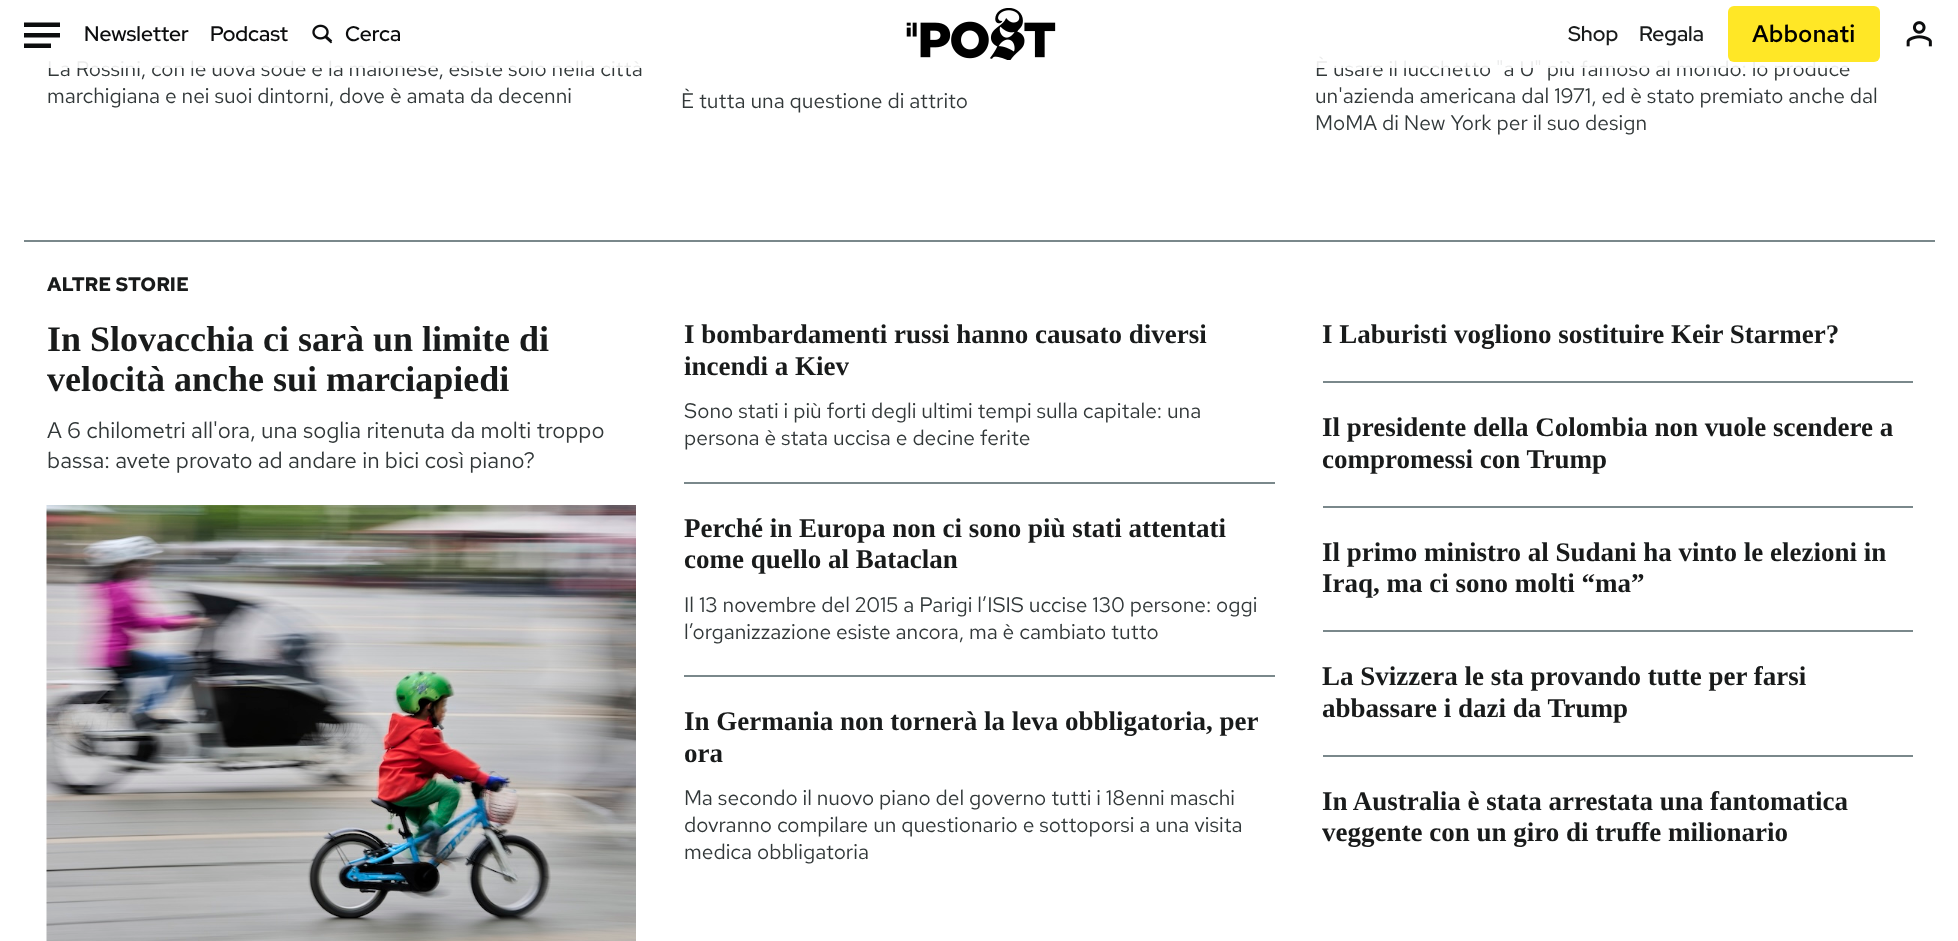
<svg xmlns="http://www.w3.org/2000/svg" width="1958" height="941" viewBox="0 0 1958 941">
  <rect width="100%" height="100%" fill="#fff"/>
  <path d="M60 33V37.5H24V33ZM51 43.5V48H24V43.5ZM60 22.5V27H24V22.5Z" fill="#0c0d0e"/>
  <image x="312" y="24" width="21" height="20" href="img/1.png"/>
  <image x="1906" y="21" width="26" height="26" href="img/3.png"/>
  <path d="M24 240h1911v2H24z" fill="#7a888b"/>
  <image x="46" y="505" width="590" height="436" href="img/4.png"/>
  <path d="M684 482h591v2H684z" fill="#7a888b"/>
  <path d="M684 675h591v2H684z" fill="#7a888b"/>
  <path d="M1323 381h590v2H1323z" fill="#7a888b"/>
  <path d="M1323 506h590v2H1323z" fill="#7a888b"/>
  <path d="M1323 630h590v2H1323z" fill="#7a888b"/>
  <path d="M1323 755h590v2H1323z" fill="#7a888b"/>
  <g font-family="Red Hat Display" font-size="21" font-weight="600" fill="#0c0d0e">
    <text x="84" y="41">Newsletter</text>
    <text x="210" y="41">Podcast</text>
    <text x="345" y="41">Cerca</text>
  </g>
  <g font-family="Red Hat Display" font-size="21" font-weight="600" fill="#191b1b">
    <text x="1568" y="41">Shop</text>
    <text x="1639" y="41">Regala</text>
  </g>
  <g font-family="Red Hat Text" font-size="21" fill="#323839">
    <text x="47" y="76">La Rossini, con le uova sode e la maionese, esiste solo nella città</text>
    <text x="47" y="103">marchigiana e nei suoi dintorni, dove è amata da decenni</text>
    <text x="681" y="108">È tutta una questione di attrito</text>
    <text x="1315" y="76">È usare il lucchetto "a U" più famoso al mondo: lo produce</text>
  </g>
  <path d="M48 56h1801v12H48z" fill="#ffffffe6"/>
  <image x="906" y="8" width="150" height="52" href="img/2.png"/>
  <rect x="1728" y="6" width="152" height="56" rx="6" fill="#ffe726"/>
  <text x="1752" y="42" font-family="Red Hat Text" font-size="24" font-weight="600" fill="#000">Abbonati</text>
  <g font-family="Red Hat Text" font-size="21" fill="#323839">
    <text x="1315" y="103">un'azienda americana dal 1971, ed è stato premiato anche dal</text>
    <text x="1315" y="130">MoMA di New York per il suo design</text>
  </g>
  <text x="47" y="291" font-family="Red Hat Text" font-size="19.5" font-weight="bold" fill="#191b1b">ALTRE STORIE</text>
  <g font-family="Liberation Serif" font-size="36" font-weight="bold" fill="#191b1b">
    <text x="47" y="351">In Slovacchia ci sarà un limite di</text>
    <text x="47" y="391">velocità anche sui marciapiedi</text>
  </g>
  <g font-family="Red Hat Text" font-size="22.5" fill="#323839">
    <text x="47" y="438">A 6 chilometri all'ora, una soglia ritenuta da molti troppo</text>
    <text x="47" y="468">bassa: avete provato ad andare in bici così piano?</text>
  </g>
  <g font-family="Liberation Serif" font-size="27" font-weight="bold" fill="#191b1b">
    <text x="684" y="343">I bombardamenti russi hanno causato diversi</text>
    <text x="684" y="375">incendi a Kiev</text>
  </g>
  <g font-family="Red Hat Text" font-size="21" fill="#323839">
    <text x="684" y="418">Sono stati i più forti degli ultimi tempi sulla capitale: una</text>
    <text x="684" y="445">persona è stata uccisa e decine ferite</text>
  </g>
  <g font-family="Liberation Serif" font-size="27" font-weight="bold" fill="#191b1b">
    <text x="684" y="537">Perché in Europa non ci sono più stati attentati</text>
    <text x="684" y="568">come quello al Bataclan</text>
  </g>
  <g font-family="Red Hat Text" font-size="21" fill="#323839">
    <text x="684" y="612">Il 13 novembre del 2015 a Parigi l’ISIS uccise 130 persone: oggi</text>
    <text x="684" y="639">l’organizzazione esiste ancora, ma è cambiato tutto</text>
  </g>
  <g font-family="Liberation Serif" font-size="27" font-weight="bold" fill="#191b1b">
    <text x="684" y="730">In Germania non tornerà la leva obbligatoria, per</text>
    <text x="684" y="762">ora</text>
  </g>
  <g font-family="Red Hat Text" font-size="21" fill="#323839">
    <text x="684" y="805">Ma secondo il nuovo piano del governo tutti i 18enni maschi</text>
    <text x="684" y="832">dovranno compilare un questionario e sottoporsi a una visita</text>
    <text x="684" y="859">medica obbligatoria</text>
  </g>
  <g font-family="Liberation Serif" font-size="27" font-weight="bold" fill="#191b1b">
    <text x="1322" y="343">I Laburisti vogliono sostituire Keir Starmer?</text>
    <text x="1322" y="436">Il presidente della Colombia non vuole scendere a</text>
    <text x="1322" y="468">compromessi con Trump</text>
    <text x="1322" y="561">Il primo ministro al Sudani ha vinto le elezioni in</text>
    <text x="1322" y="592">Iraq, ma ci sono molti “ma”</text>
    <text x="1322" y="685">La Svizzera le sta provando tutte per farsi</text>
    <text x="1322" y="717">abbassare i dazi da Trump</text>
    <text x="1322" y="810">In Australia è stata arrestata una fantomatica</text>
    <text x="1322" y="841">veggente con un giro di truffe milionario</text>
  </g>
</svg>
